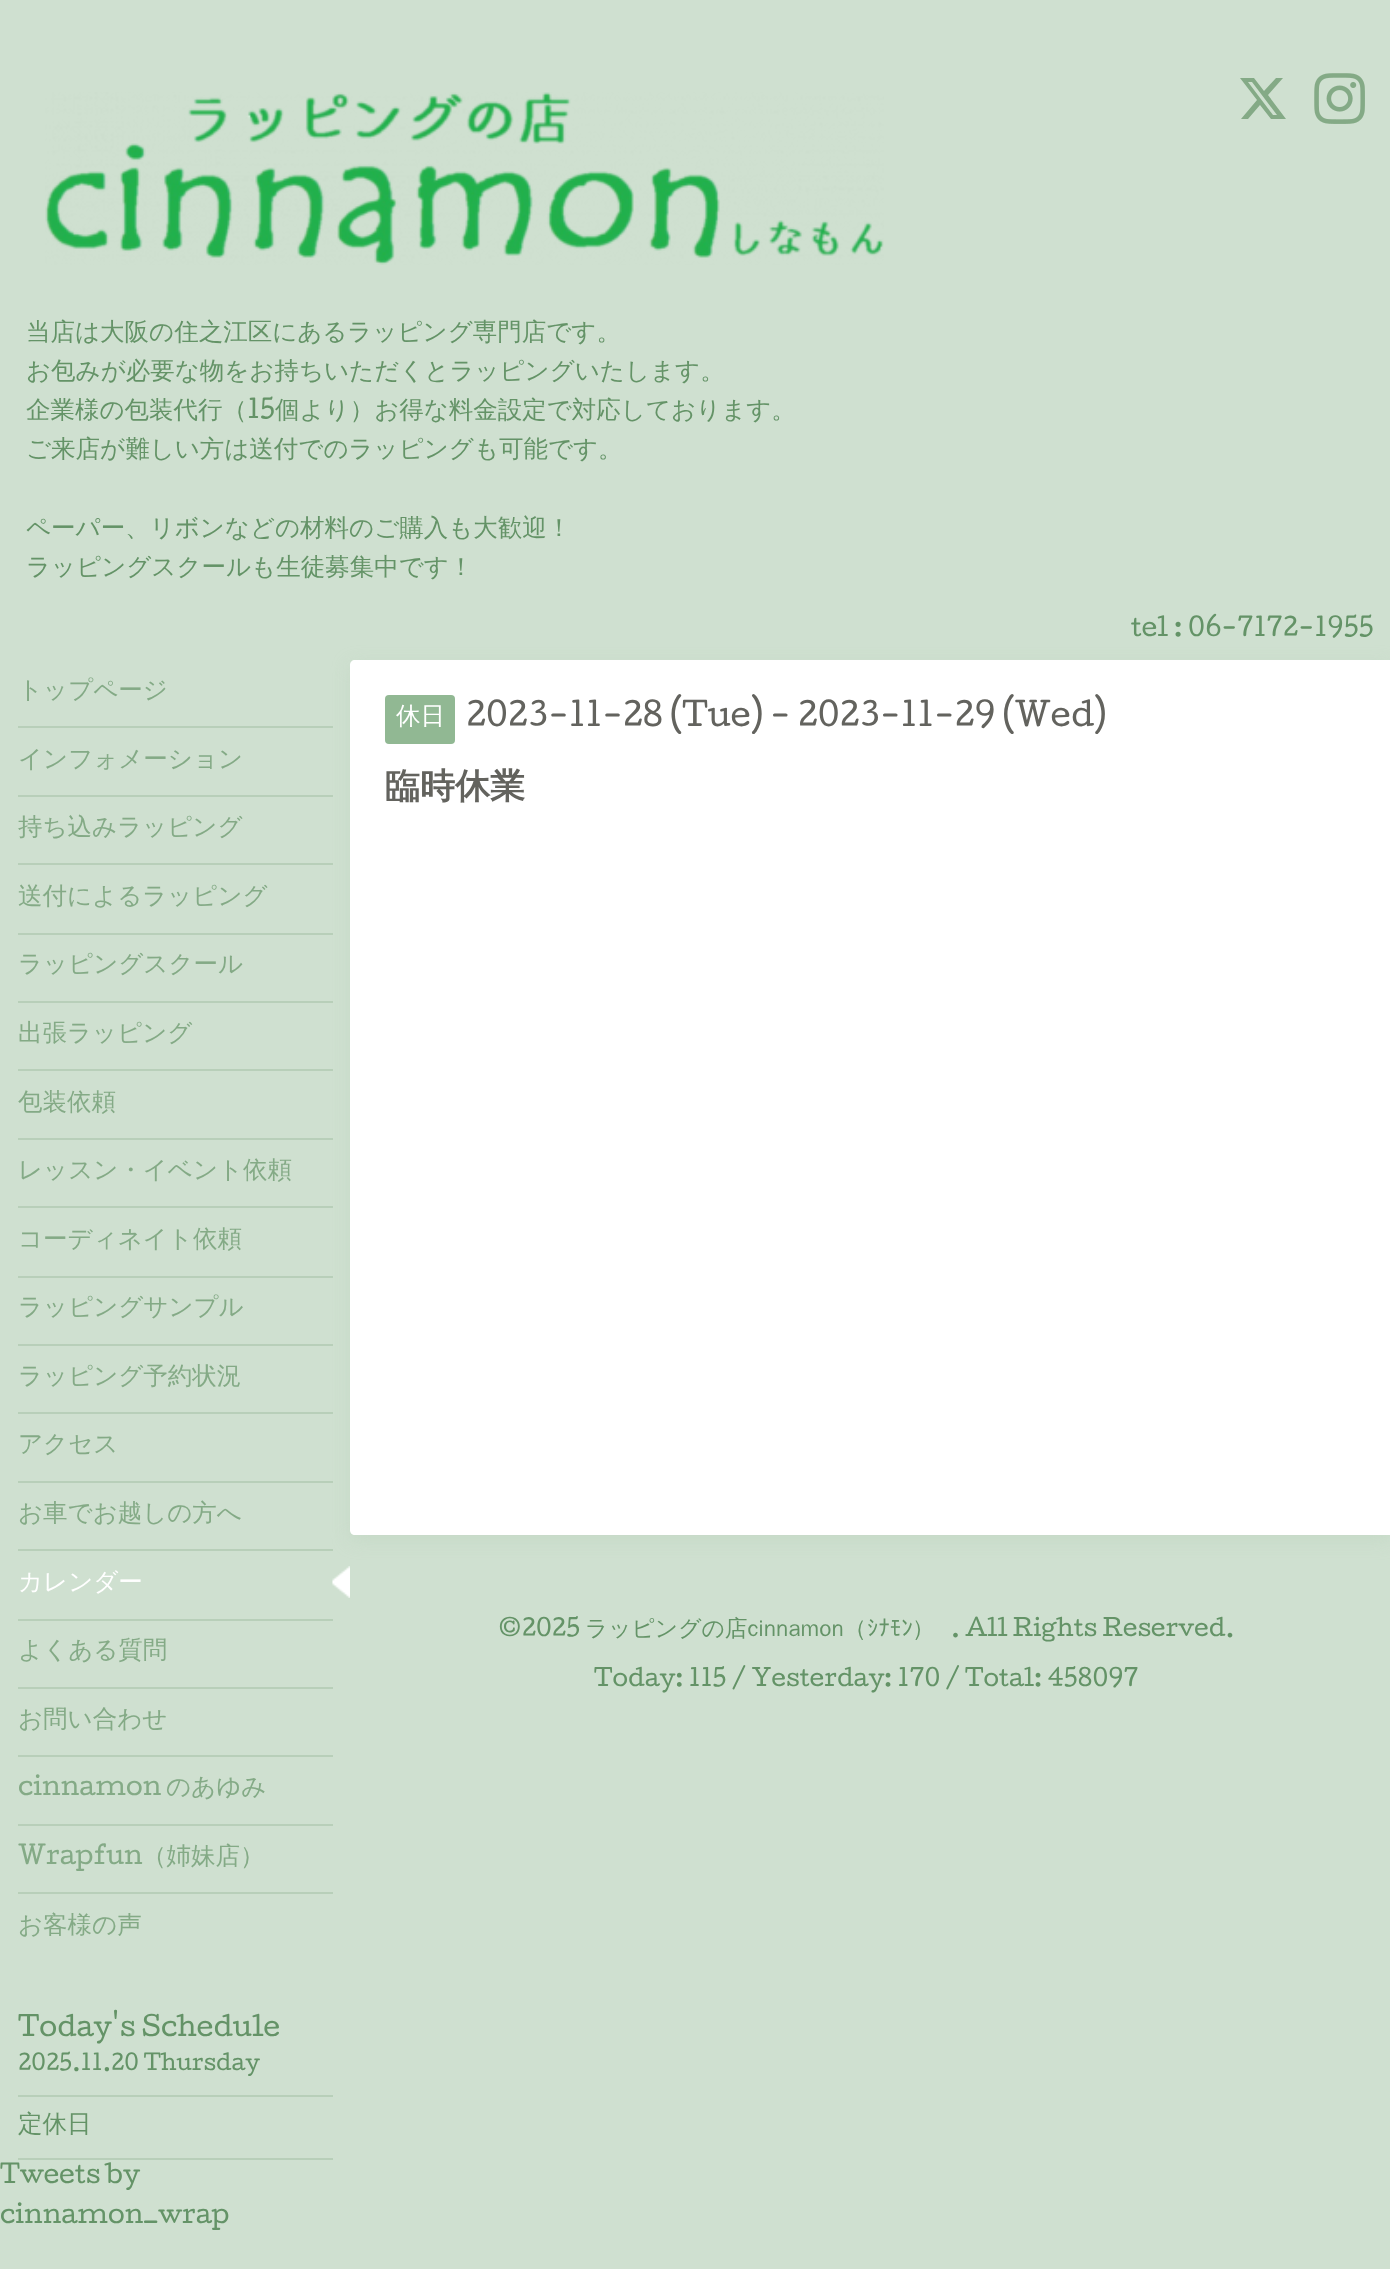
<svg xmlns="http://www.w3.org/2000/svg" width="1390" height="2269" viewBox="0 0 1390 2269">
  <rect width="100%" height="100%" fill="#cfe0d0"/>
  <image x="45" y="92" width="839" height="173" href="img/1.png"/>
  <path d="M1276 78H1283L1268 95L1286 119H1271L1260 105L1248 119H1241L1257 100L1240 78H1254L1264 91ZM1273 115H1277L1252 82H1248Z" fill="#84aa86"/>
  <image x="1314" y="73" width="51" height="51" href="img/2.png"/>
  <rect x="350" y="665" width="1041" height="875" rx="5" fill="#b6d0b866" filter="blur(9px)"/>
  <path d="M18 726h315v2H18z" fill="#b8cfb9"/>
  <path d="M18 795h315v2H18z" fill="#b8cfb9"/>
  <path d="M18 863h315v2H18z" fill="#b8cfb9"/>
  <path d="M18 933h315v2H18z" fill="#b8cfb9"/>
  <path d="M18 1001h315v2H18z" fill="#b8cfb9"/>
  <path d="M18 1069h315v2H18z" fill="#b8cfb9"/>
  <path d="M18 1138h315v2H18z" fill="#b8cfb9"/>
  <path d="M18 1206h315v2H18z" fill="#b8cfb9"/>
  <path d="M18 1276h315v2H18z" fill="#b8cfb9"/>
  <path d="M18 1344h315v2H18z" fill="#b8cfb9"/>
  <path d="M18 1412h315v2H18z" fill="#b8cfb9"/>
  <path d="M18 1481h315v2H18z" fill="#b8cfb9"/>
  <image x="332" y="1566" width="18" height="32" href="img/3.png"/>
  <path d="M18 1549h315v2H18z" fill="#b8cfb9"/>
  <path d="M18 1619h315v2H18z" fill="#b8cfb9"/>
  <path d="M18 1687h315v2H18z" fill="#b8cfb9"/>
  <path d="M18 1755h315v2H18z" fill="#b8cfb9"/>
  <path d="M18 1824h315v2H18z" fill="#b8cfb9"/>
  <path d="M18 1892h315v2H18z" fill="#b8cfb9"/>
  <path d="M18 2095h315v2H18z" fill="#b8cfb9"/>
  <path d="M18 2158h315v2H18z" fill="#b8cfb9"/>
  <path d="M355 660H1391V1535H355C352 1535 350 1533 350 1530V665C350 662 352 660 355 660Z" fill="#fff"/>
  <rect x="385" y="695" width="70" height="49" rx="4" fill="#91b893"/>
  <g font-family="WenQuanYi Zen Hei" font-size="24.5" font-weight="500" fill="#649367">
    <text x="26" y="340">当店は大阪の住之江区にあるラッピング専門店です。</text>
    <text x="26" y="379">お包みが必要な物をお持ちいただくとラッピングいたします。</text>
    <text x="26" y="418">企業様の包装代行（</text>
  </g>
  <text x="247" y="418" font-family="Cutive" font-size="24.5" fill="#649367">15</text>
  <g font-family="WenQuanYi Zen Hei" font-size="24.5" font-weight="500" fill="#649367">
    <text x="275" y="418">個より）お得な料金設定で対応しております。</text>
    <text x="26" y="457">ご来店が難しい方は送付でのラッピングも可能です。</text>
    <text x="26" y="536">ペーパー、リボンなどの材料のご購入も大歓迎！</text>
    <text x="26" y="575">ラッピングスクールも生徒募集中です！</text>
  </g>
  <text x="1131" y="636" font-family="Cutive" font-size="24.5" fill="#649367">tel : 06-7172-1955</text>
  <g font-family="WenQuanYi Zen Hei" font-size="24.5" font-weight="500" fill="#84aa86">
    <text x="18" y="698">トップページ</text>
    <text x="18" y="767">インフォメーション</text>
    <text x="18" y="835">持ち込みラッピング</text>
    <text x="18" y="904">送付によるラッピング</text>
    <text x="18" y="972">ラッピングスクール</text>
    <text x="18" y="1041">出張ラッピング</text>
    <text x="18" y="1110">包装依頼</text>
    <text x="18" y="1178">レッスン・イベント依頼</text>
    <text x="18" y="1247">コーディネイト依頼</text>
    <text x="18" y="1315">ラッピングサンプル</text>
    <text x="18" y="1384">ラッピング予約状況</text>
    <text x="18" y="1452">アクセス</text>
    <text x="18" y="1521">お車でお越しの方へ</text>
  </g>
  <text x="18" y="1590" font-family="WenQuanYi Zen Hei" font-size="24.5" font-weight="500" fill="#fff">カレンダー</text>
  <g font-family="WenQuanYi Zen Hei" font-size="24.5" font-weight="500" fill="#84aa86">
    <text x="18" y="1658">よくある質問</text>
    <text x="18" y="1727">お問い合わせ</text>
  </g>
  <text x="18" y="1795" font-family="Cutive" font-size="24.5" fill="#84aa86">cinnamon</text>
  <text x="166" y="1795" font-family="WenQuanYi Zen Hei" font-size="24.5" font-weight="500" fill="#84aa86">のあゆみ</text>
  <text x="18" y="1864" font-family="Cutive" font-size="24.5" fill="#84aa86">Wrapfun</text>
  <g font-family="WenQuanYi Zen Hei" font-size="24.5" font-weight="500" fill="#84aa86">
    <text x="142" y="1864">（姉妹店）</text>
    <text x="18" y="1933">お客様の声</text>
  </g>
  <text x="18" y="2036" font-family="Cutive" font-size="26.25" fill="#649367">Today's Schedule</text>
  <text x="18" y="2070" font-family="Cutive" font-size="21" fill="#649367">2025.11.20 Thursday</text>
  <text x="18" y="2132" font-family="WenQuanYi Zen Hei" font-size="24.5" font-weight="500" fill="#649367">定休日</text>
  <g font-family="Cutive" font-size="24.5" fill="#649367">
    <text x="0" y="2183">Tweets by</text>
    <text x="0" y="2223">cinnamon_wrap</text>
  </g>
  <text x="396" y="724" font-family="WenQuanYi Zen Hei" font-size="24.5" font-weight="500" fill="#fff">休日</text>
  <text x="466" y="726" font-family="Cutive" font-size="31.5" fill="#63635e">2023-11-28 (Tue) - 2023-11-29 (Wed)</text>
  <text x="385" y="798" font-family="WenQuanYi Zen Hei" font-size="35" font-weight="bold" fill="#63635e">臨時休業</text>
  <text x="498" y="1636" font-family="Cutive" font-size="22.75" fill="#649367">©2025</text>
  <text x="585" y="1636" font-family="WenQuanYi Zen Hei" font-size="22.75" font-weight="500" fill="#649367">ラッピングの店cinnamon（</text>
  <text x="867" y="1636" font-family="IPAPGothic" font-size="22.75" fill="#649367">ｼﾅﾓﾝ</text>
  <text x="912" y="1636" font-family="WenQuanYi Zen Hei" font-size="22.75" font-weight="500" fill="#649367">）</text>
  <g font-family="Cutive" font-size="22.75" fill="#649367">
    <text x="951" y="1636">. All Rights Reserved.</text>
    <text x="594" y="1686">Today: 115 / Yesterday: 170 / Total: 458097</text>
  </g>
</svg>
